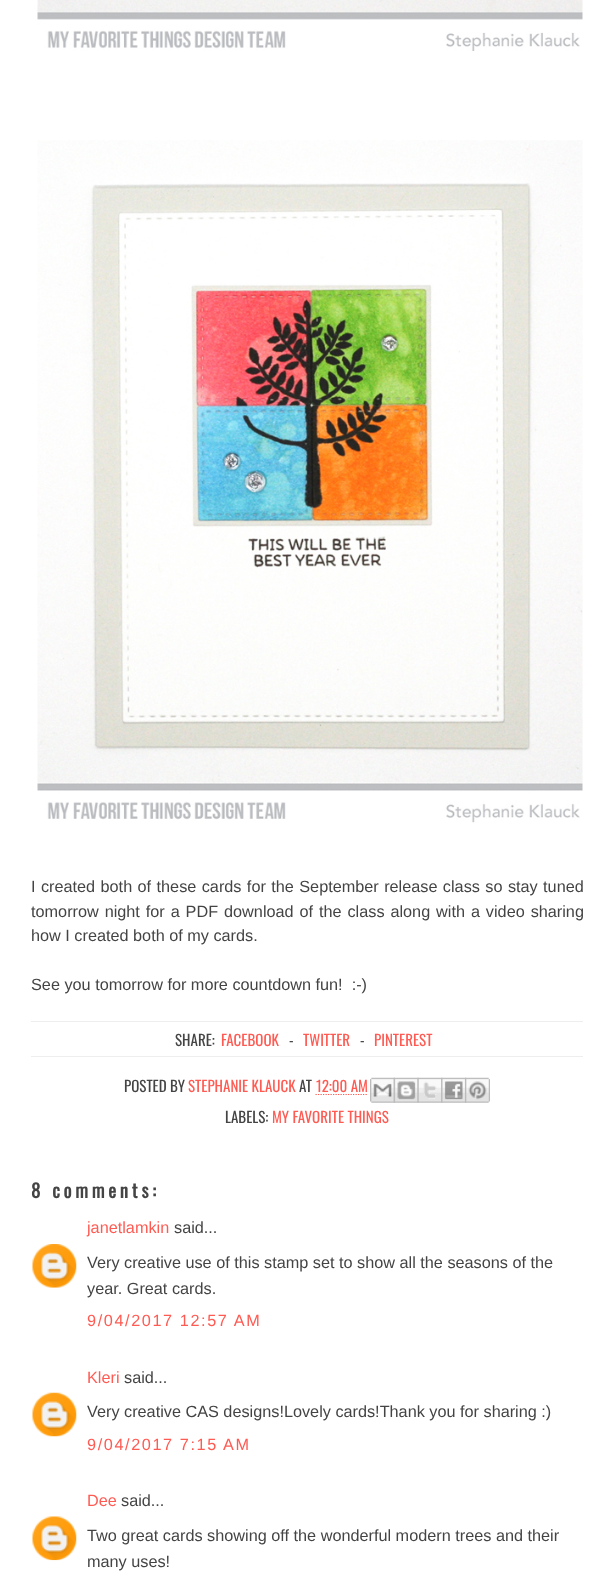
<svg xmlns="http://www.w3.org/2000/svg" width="613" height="1580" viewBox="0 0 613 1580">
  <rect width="100%" height="100%" fill="#fff"/>
  <image x="37" y="0" width="546" height="51" href="img/1.png"/>
  <image x="37" y="140" width="546" height="683" href="img/2.png"/>
  <path d="M31 1021h552v1H31z" fill="#eee"/>
  <path d="M31 1056h552v1H31z" fill="#eee"/>
  <path d="M315.5 1094.5H367.5" fill="none" stroke="#ff5b53" stroke-width="1.2" stroke-dasharray="1.25 1.25"/>
  <image x="370" y="1077" width="25" height="26" href="img/3.png"/>
  <image x="393" y="1077" width="26" height="26" href="img/4.png"/>
  <image x="417" y="1077" width="26" height="26" href="img/5.png"/>
  <image x="441" y="1077" width="26" height="26" href="img/6.png"/>
  <image x="465" y="1077" width="25" height="26" href="img/7.png"/>
  <image x="32" y="1244" width="45" height="44" href="img/8.png"/>
  <image x="32" y="1392" width="45" height="45" href="img/9.png"/>
  <image x="32" y="1516" width="45" height="45" href="img/10.png"/>
  <g font-family="Liberation Sans" font-size="16.25" fill="#444">
    <text x="31" y="892" word-spacing="0.9">I created both of these cards for the September release class so stay tuned</text>
    <text x="31" y="917" word-spacing="1.4">tomorrow night for a PDF download of the class along with a video sharing</text>
    <text x="31" y="941">how I created both of my cards.</text>
    <text x="31" y="990" xml:space="preserve">See you tomorrow for more countdown fun!  :-)</text>
  </g>
  <text x="175" y="1046" font-family="Oswald" font-size="15" fill="#444">SHARE:</text>
  <text x="221" y="1046" font-family="Oswald" font-size="15" fill="#ff5b53">FACEBOOK</text>
  <text x="289" y="1046" font-family="Oswald" font-size="15" fill="#444">-</text>
  <text x="303" y="1046" font-family="Oswald" font-size="15" fill="#ff5b53">TWITTER</text>
  <text x="360" y="1046" font-family="Oswald" font-size="15" fill="#444">-</text>
  <text x="374" y="1046" font-family="Oswald" font-size="15" fill="#ff5b53">PINTEREST</text>
  <text x="124" y="1092" font-family="Oswald" font-size="15" fill="#444">POSTED BY</text>
  <text x="188" y="1092" font-family="Oswald" font-size="15" fill="#ff5b53">STEPHANIE KLAUCK</text>
  <text x="299" y="1092" font-family="Oswald" font-size="15" fill="#444">AT</text>
  <text x="316" y="1092" font-family="Oswald" font-size="15" fill="#ff5b53">12:00 AM</text>
  <text x="225" y="1123" font-family="Oswald" font-size="15" fill="#444">LABELS:</text>
  <text x="272" y="1123" font-family="Oswald" font-size="15" fill="#ff5b53">MY FAVORITE THINGS</text>
  <text x="31" y="1198" font-family="Oswald" font-size="18.75" font-weight="bold" letter-spacing="3.75" fill="#444">8 comments:</text>
  <text x="87" y="1233" font-family="Liberation Sans" font-size="16.25" fill="#ff5b53">janetlamkin</text>
  <g font-family="Liberation Sans" font-size="16.25" fill="#444">
    <text x="174" y="1233">said...</text>
    <text x="87" y="1268">Very creative use of this stamp set to show all the seasons of the</text>
    <text x="87" y="1294">year. Great cards.</text>
  </g>
  <text x="87" y="1326" font-family="Liberation Sans" font-size="16.25" letter-spacing="1.6" fill="#ff5b53">9/04/2017 12:57 AM</text>
  <text x="87" y="1383" font-family="Liberation Sans" font-size="16.25" fill="#ff5b53">Kleri</text>
  <g font-family="Liberation Sans" font-size="16.25" fill="#444">
    <text x="124" y="1383">said...</text>
    <text x="87" y="1417">Very creative CAS designs!Lovely cards!Thank you for sharing :)</text>
  </g>
  <text x="87" y="1450" font-family="Liberation Sans" font-size="16.25" letter-spacing="1.6" fill="#ff5b53">9/04/2017 7:15 AM</text>
  <text x="87" y="1506" font-family="Liberation Sans" font-size="16.25" fill="#ff5b53">Dee</text>
  <g font-family="Liberation Sans" font-size="16.25" fill="#444">
    <text x="121" y="1506">said...</text>
    <text x="87" y="1541">Two great cards showing off the wonderful modern trees and their</text>
    <text x="87" y="1567">many uses!</text>
  </g>
</svg>
